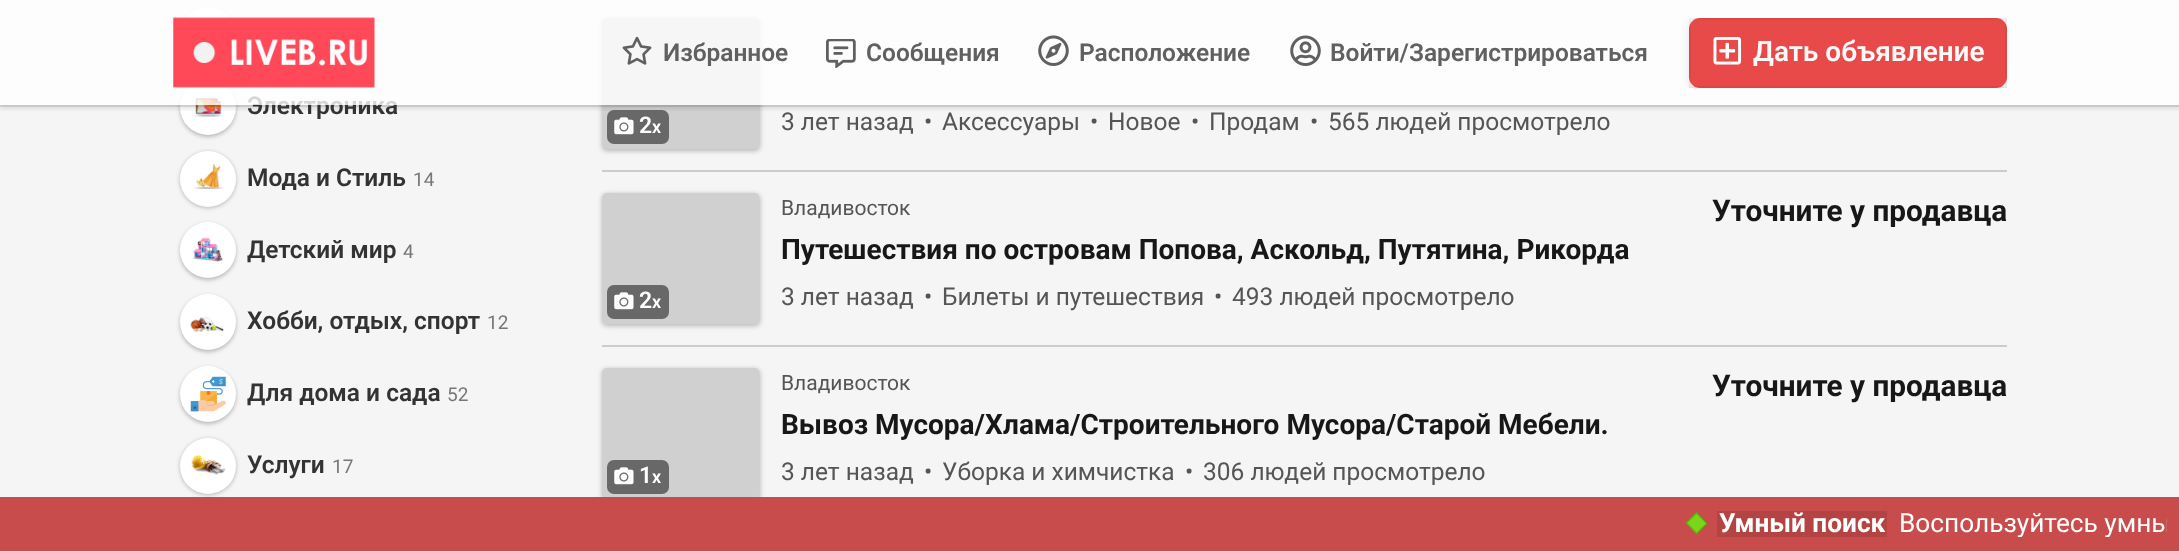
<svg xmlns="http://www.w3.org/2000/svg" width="2179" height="551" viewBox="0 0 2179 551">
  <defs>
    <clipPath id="clip1"><path d="M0 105h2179v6H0z"/></clipPath>
    <clipPath id="clip2"><path d="M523 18h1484v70H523z"/></clipPath>
    <clipPath id="clip3"><path d="M14 511h2153v26H14z"/></clipPath>
  </defs>
  <rect width="100%" height="100%" fill="#f5f5f5"/>
  <rect x="180" y="81" width="56" height="56" rx="28" fill="#00000040" filter="blur(2px)"/>
  <circle cx="208" cy="107" r="28" fill="#fff"/>
  <image x="195" y="97" width="27" height="20" href="img/8.png"/>
  <rect x="602" y="19" width="158" height="132" rx="5" fill="#00000040" filter="blur(2.5px)"/>
  <image x="602" y="18" width="158" height="131" href="img/14.png"/>
  <path d="M0 105V107H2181V2H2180V105Z" fill="#0000001a"/>
  <rect x="180" y="9" width="56" height="56" rx="28" fill="#00000040" filter="blur(2px)"/>
  <circle cx="208" cy="35" r="28" fill="#fff"/>
  <image x="208" y="17" width="4" height="2" href="img/7.png"/>
  <rect x="607" y="110" width="62" height="34" rx="7" fill="#686868"/>
  <image x="614" y="117" width="20" height="18" href="img/15.png"/>
  <g clip-path="url(#clip1)">
    <path d="M0 4h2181v105H0z" fill="#0000001a" filter="blur(2.5px)"/>
  </g>
  <rect x="180" y="152" width="56" height="56" rx="28" fill="#00000040" filter="blur(2px)"/>
  <circle cx="208" cy="179" r="28" fill="#fff"/>
  <image x="194" y="164" width="30" height="26" href="img/9.png"/>
  <rect x="180" y="224" width="56" height="56" rx="28" fill="#00000040" filter="blur(2px)"/>
  <circle cx="208" cy="250" r="28" fill="#fff"/>
  <image x="193" y="237" width="31" height="25" href="img/10.png"/>
  <rect x="180" y="296" width="56" height="56" rx="28" fill="#00000040" filter="blur(2px)"/>
  <circle cx="208" cy="322" r="28" fill="#fff"/>
  <image x="190" y="316" width="34" height="16" href="img/11.png"/>
  <rect x="180" y="368" width="56" height="56" rx="28" fill="#00000040" filter="blur(2px)"/>
  <circle cx="208" cy="394" r="28" fill="#fff"/>
  <image x="190" y="376" width="36" height="36" href="img/12.png"/>
  <rect x="180" y="439" width="56" height="56" rx="28" fill="#00000040" filter="blur(2px)"/>
  <circle cx="208" cy="466" r="28" fill="#fff"/>
  <image x="191" y="454" width="35" height="21" href="img/13.png"/>
  <path d="M602 170h1405v2H602z" fill="#ccc"/>
  <path d="M602 345h1405v2H602z" fill="#ccc"/>
  <rect x="602" y="194" width="158" height="132" rx="5" fill="#00000040" filter="blur(2.5px)"/>
  <image x="602" y="193" width="158" height="131" href="img/16.png"/>
  <rect x="607" y="285" width="62" height="34" rx="7" fill="#686868"/>
  <image x="614" y="292" width="20" height="18" href="img/15.png"/>
  <rect x="602" y="369" width="158" height="132" rx="5" fill="#00000040" filter="blur(2.5px)"/>
  <image x="602" y="368" width="158" height="129" href="img/17.png"/>
  <rect x="607" y="460" width="62" height="34" rx="7" fill="#686868"/>
  <image x="614" y="467" width="20" height="18" href="img/15.png"/>
  <path d="M0 497h2179v54H0z" fill="#c84c4c"/>
  <path d="M1696.5 512L1707.5 523.5L1696.5 534.5L1685.5 523Z" fill="#78d719"/>
  <path d="M1696.5 513L1707 523.5L1696.5 533.5L1686.5 523Z" fill="none" stroke="#00000033" stroke-width="1.3"/>
  <path d="M1717 511h170v26H1717z" fill="#b44444"/>
  <text x="247" y="114" font-family="Roboto" font-size="24.5" font-weight="600" fill="#333">Электроника</text>
  <path d="M0 0h2179v105H0z" fill="#ffffffcc"/>
  <image x="622" y="36" width="30" height="29" href="img/2.png"/>
  <text x="663" y="61" font-family="Roboto" font-size="24.5" font-weight="600" fill="#606060">Избранное</text>
  <image x="826" y="39" width="30" height="29" href="img/3.png"/>
  <text x="866" y="61" font-family="Roboto" font-size="24.5" font-weight="600" fill="#606060">Сообщения</text>
  <image x="1038" y="35" width="31" height="31" href="img/4.png"/>
  <text x="1079" y="61" font-family="Roboto" font-size="24.5" font-weight="600" fill="#606060">Расположение</text>
  <image x="1290" y="35" width="31" height="31" href="img/5.png"/>
  <text x="1330" y="61" font-family="Roboto" font-size="24.5" font-weight="600" fill="#606060">Войти/Зарегистрироваться</text>
  <g clip-path="url(#clip2)">
    <rect x="1689" y="21" width="318" height="70" rx="11" fill="#0000001a" filter="blur(4.5px)"/>
  </g>
  <rect x="1689" y="18" width="318" height="70" rx="11" fill="#e84a4a"/>
  <path d="M1690 19h316v68H1690z" fill="none" stroke="#0000000d" stroke-width="2"/>
  <image x="1713" y="37" width="29" height="28" href="img/6.png"/>
  <text x="1753" y="61" font-family="Roboto" font-size="28" font-weight="600" fill="#f9f9f9">Дать объявление</text>
  <image x="173" y="17" width="202" height="71" href="img/1.png"/>
  <text x="247" y="186" font-family="Roboto" font-size="24.5" font-weight="600" fill="#333">Мода и Стиль</text>
  <text x="413" y="186" font-family="Roboto" font-size="19" fill="#777">14</text>
  <text x="247" y="258" font-family="Roboto" font-size="24.5" font-weight="600" fill="#333">Детский мир</text>
  <text x="403" y="258" font-family="Roboto" font-size="19" fill="#777">4</text>
  <text x="247" y="329" font-family="Roboto" font-size="24.5" font-weight="600" fill="#333">Хобби, отдых, спорт</text>
  <text x="487" y="329" font-family="Roboto" font-size="19" fill="#777">12</text>
  <text x="247" y="401" font-family="Roboto" font-size="24.5" font-weight="600" fill="#333">Для дома и сада</text>
  <text x="447" y="401" font-family="Roboto" font-size="19" fill="#777">52</text>
  <text x="247" y="473" font-family="Roboto" font-size="24.5" font-weight="600" fill="#333">Услуги</text>
  <text x="332" y="473" font-family="Roboto" font-size="19" fill="#777">17</text>
  <text x="639" y="133" font-family="Roboto" font-size="23" font-weight="600" fill="#fff">2</text>
  <text x="652" y="133" font-family="Roboto" font-size="18" font-weight="600" fill="#fff">x</text>
  <g font-family="Roboto" font-size="24.5" fill="#555">
    <text x="781" y="130">3 лет назад</text>
    <text x="924" y="130">•</text>
    <text x="942" y="130">Аксессуары</text>
    <text x="1090" y="130">•</text>
    <text x="1108" y="130">Новое</text>
    <text x="1191" y="130">•</text>
    <text x="1209" y="130">Продам</text>
    <text x="1310" y="130">•</text>
    <text x="1328" y="130">565 людей просмотрело</text>
  </g>
  <text x="639" y="308" font-family="Roboto" font-size="23" font-weight="600" fill="#fff">2</text>
  <text x="652" y="308" font-family="Roboto" font-size="18" font-weight="600" fill="#fff">x</text>
  <text x="781" y="215" font-family="Roboto" font-size="21" fill="#555">Владивосток</text>
  <text x="781" y="259" font-family="Roboto" font-size="28" font-weight="bold" fill="#171717">Путешествия по островам Попова, Аскольд, Путятина, Рикорда</text>
  <g font-family="Roboto" font-size="24.5" fill="#555">
    <text x="781" y="305">3 лет назад</text>
    <text x="924" y="305">•</text>
    <text x="942" y="305">Билеты и путешествия</text>
    <text x="1214" y="305">•</text>
    <text x="1232" y="305">493 людей просмотрело</text>
  </g>
  <text x="1712" y="221" font-family="Roboto" font-size="29.75" font-weight="bold" fill="#171717">Уточните у продавца</text>
  <text x="639" y="483" font-family="Roboto" font-size="23" font-weight="600" fill="#fff">1</text>
  <text x="652" y="483" font-family="Roboto" font-size="18" font-weight="600" fill="#fff">x</text>
  <text x="781" y="390" font-family="Roboto" font-size="21" fill="#555">Владивосток</text>
  <text x="781" y="434" font-family="Roboto" font-size="28" font-weight="bold" fill="#171717">Вывоз Мусора/Хлама/Строительного Мусора/Старой Мебели.</text>
  <g font-family="Roboto" font-size="24.5" fill="#555">
    <text x="781" y="480">3 лет назад</text>
    <text x="924" y="480">•</text>
    <text x="942" y="480">Уборка и химчистка</text>
    <text x="1185" y="480">•</text>
    <text x="1203" y="480">306 людей просмотрело</text>
  </g>
  <text x="1712" y="396" font-family="Roboto" font-size="29.75" font-weight="bold" fill="#171717">Уточните у продавца</text>
  <text x="1719" y="532" font-family="Roboto" font-size="26.25" font-weight="bold" fill="#fff">Умный поиск</text>
  <g clip-path="url(#clip3)">
    <text x="1899" y="532" font-family="Roboto" font-size="26.25" fill="#fff">Воспользуйтесь умны</text>
  </g>
</svg>
